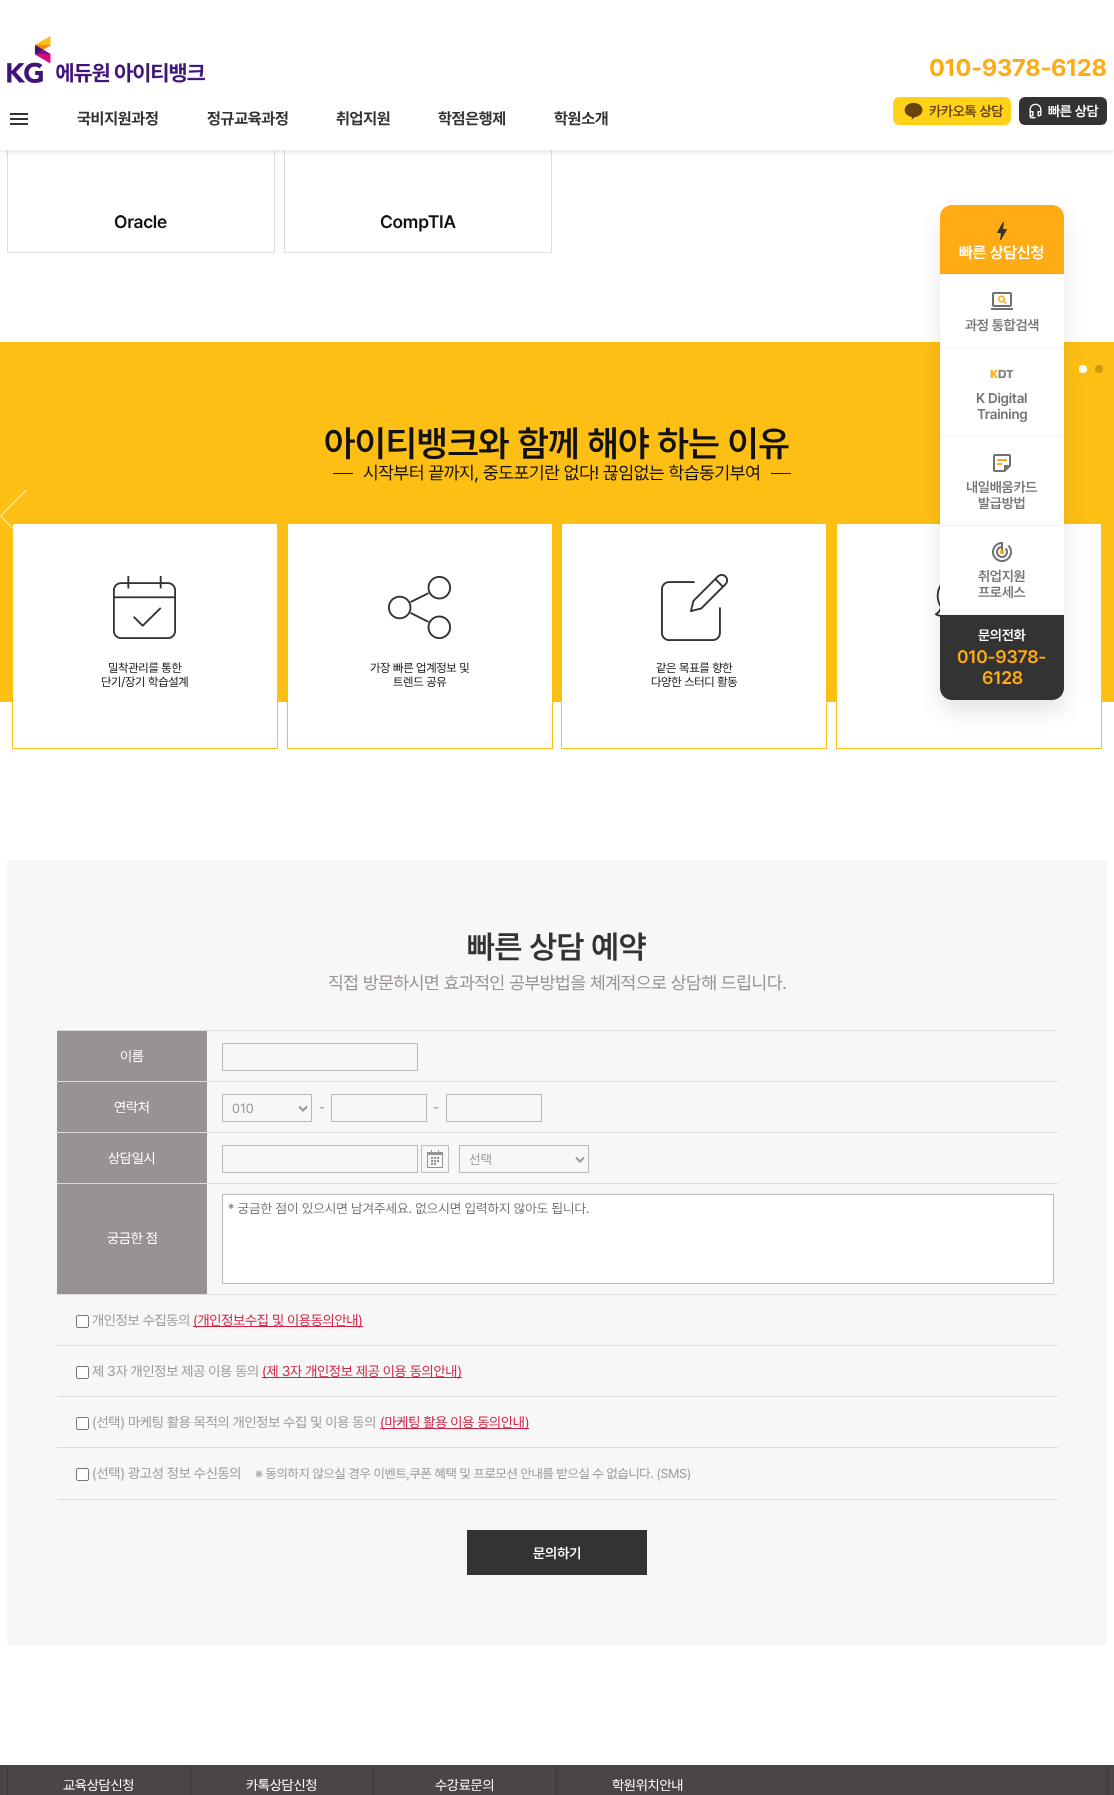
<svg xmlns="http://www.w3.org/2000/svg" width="1114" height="1795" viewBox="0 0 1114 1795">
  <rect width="100%" height="100%" fill="#fff"/>
  <path d="M7.5 6.5h267v246H7.5z" fill="none" stroke="#dcdcdc"/>
  <path d="M284.5 6.5h267v246H284.5z" fill="none" stroke="#dcdcdc"/>
  <path d="M0 2h1114v150H0z" fill="#0000001a" filter="blur(2.5px)"/>
  <path d="M0 0h1114v150H0z" fill="#fff"/>
  <image x="10" y="113" width="18" height="12" href="img/1.png"/>
  <image x="7" y="36" width="199" height="47" href="img/2.png"/>
  <rect x="893" y="97" width="118" height="28" rx="6" fill="#ffd117"/>
  <image x="904" y="102" width="19" height="18" href="img/3.png"/>
  <rect x="1019" y="97" width="88" height="28" rx="6" fill="#333"/>
  <image x="1029" y="103" width="13" height="16" href="img/4.png"/>
  <path d="M0 342h1114v360H0z" fill="#febf14"/>
  <path d="M13 524h264v178H13z" fill="#fff"/>
  <path d="M12.5 523.5h265v225H12.5z" fill="none" stroke="#febf14"/>
  <image x="0" y="490" width="27" height="39" href="img/5.png"/>
  <circle cx="1083" cy="369" r="4" fill="#fff"/>
  <circle cx="1099" cy="369" r="4" fill="#cb9910"/>
  <path d="M333 473h20v1H333z" fill="#111"/>
  <path d="M771 473h20v1H771z" fill="#111"/>
  <image x="113" y="576" width="63" height="63" href="img/6.png"/>
  <path d="M288 524h264v178H288z" fill="#fff"/>
  <path d="M287.5 523.5h265v225H287.5z" fill="none" stroke="#febf14"/>
  <image x="388" y="576" width="63" height="63" href="img/7.png"/>
  <path d="M562 524h264v178H562z" fill="#fff"/>
  <path d="M561.5 523.5h265v225H561.5z" fill="none" stroke="#febf14"/>
  <image x="661" y="574" width="67" height="67" href="img/8.png"/>
  <path d="M837 524h264v178H837z" fill="#fff"/>
  <path d="M836.5 523.5h265v225H836.5z" fill="none" stroke="#febf14"/>
  <image x="935" y="584" width="5" height="33" href="img/9.png"/>
  <path d="M7 860h1100v785H7z" fill="#f7f7f7"/>
  <path d="M57 1030h1000v1H57z" fill="#dcdcdc"/>
  <path d="M57 1081h1001v1H57z" fill="#dcdcdc"/>
  <path d="M57 1031h150v50H57z" fill="#999292"/>
  <path d="M222.5 1043.5h195v27H222.5z" fill="none" stroke="#b8b8b8"/>
  <path d="M57 1132h1001v1H57z" fill="#dcdcdc"/>
  <path d="M57 1082h150v50H57z" fill="#999292"/>
  <path d="M222.5 1094.5h89v27H222.5z" fill="none" stroke="#b8b8b8"/>
  <path d="M299 1106.5L303 1110.5L307 1106.5" fill="none" stroke="#999" stroke-width="2"/>
  <path d="M331.5 1094.5h95v27H331.5z" fill="none" stroke="#b8b8b8"/>
  <path d="M446.5 1094.5h95v27H446.5z" fill="none" stroke="#b8b8b8"/>
  <path d="M57 1183h1001v1H57z" fill="#dcdcdc"/>
  <path d="M57 1133h150v50H57z" fill="#999292"/>
  <path d="M222.5 1145.5h195v27H222.5z" fill="none" stroke="#b8b8b8"/>
  <image x="421" y="1145" width="28" height="28" href="img/10.png"/>
  <path d="M459.5 1145.5h129v27H459.5z" fill="none" stroke="#b8b8b8"/>
  <path d="M576 1157.5L580 1161.5L584 1157.5" fill="none" stroke="#999" stroke-width="2"/>
  <path d="M57 1294h1001v1H57z" fill="#dcdcdc"/>
  <path d="M222.5 1194.5h831v89H222.5z" fill="#fff" stroke="#b8b8b8"/>
  <path d="M57 1184h150v110H57z" fill="#999292"/>
  <path d="M57 1345h1001v1H57z" fill="#dcdcdc"/>
  <rect x="76.5" y="1315.5" width="12" height="12" rx="1.5" fill="#fff" stroke="#767676"/>
  <path d="M193 1326h170v1H193z" fill="#d12243"/>
  <path d="M57 1396h1001v1H57z" fill="#dcdcdc"/>
  <rect x="76.5" y="1366.5" width="12" height="12" rx="1.5" fill="#fff" stroke="#767676"/>
  <path d="M262 1377h200v1H262z" fill="#d12243"/>
  <path d="M57 1447h1001v1H57z" fill="#dcdcdc"/>
  <rect x="76.5" y="1417.5" width="12" height="12" rx="1.5" fill="#fff" stroke="#767676"/>
  <path d="M380 1428h149v1H380z" fill="#d12243"/>
  <path d="M57 1499h1001v1H57z" fill="#dcdcdc"/>
  <rect x="76.5" y="1468.5" width="12" height="12" rx="1.5" fill="#fff" stroke="#767676"/>
  <path d="M467 1530h180v45H467z" fill="#333"/>
  <rect x="940" y="217" width="124" height="495" rx="12" fill="#0000001a" filter="blur(10px)"/>
  <path d="M952 205H1052C1058.5 205 1064 210.5 1064 217V274H940V217C940 210.5 945.5 205 952 205Z" fill="#feab14"/>
  <image x="997" y="222" width="10" height="18" href="img/11.png"/>
  <path d="M940 275h124v339H940z" fill="#fff"/>
  <path d="M940 274h124v1H940z" fill="#f2f2f2"/>
  <path d="M940 347h124v1H940z" fill="#f2f2f2"/>
  <image x="991" y="292" width="22" height="18" href="img/12.png"/>
  <path d="M940 436h124v1H940z" fill="#f2f2f2"/>
  <image x="990" y="369" width="24" height="10" href="img/13.png"/>
  <path d="M940 525h124v1H940z" fill="#f2f2f2"/>
  <image x="993" y="454" width="18" height="18" href="img/14.png"/>
  <path d="M940 614h124v1H940z" fill="#f2f2f2"/>
  <image x="992" y="542" width="20" height="20" href="img/15.png"/>
  <path d="M940 615H1064V688C1064 694.5 1058.5 700 1052 700H952C945.5 700 940 694.5 940 688Z" fill="#333"/>
  <path d="M0 1765h1114v30H0z" fill="#4b4545"/>
  <path d="M1107 1765h1v30H1107z" fill="#3c3737"/>
  <path d="M7 1765h1v30H7z" fill="#3c3737"/>
  <path d="M190 1765h1v30H190z" fill="#3c3737"/>
  <path d="M373 1765h1v30H373z" fill="#3c3737"/>
  <path d="M556 1765h1v30H556z" fill="#3c3737"/>
  <g font-family="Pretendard" font-size="16" font-weight="bold" letter-spacing="-0.25" fill="#333">
    <text x="77" y="124">국비지원과정</text>
    <text x="207" y="124">정규교육과정</text>
    <text x="336" y="124">취업지원</text>
    <text x="438" y="124">학점은행제</text>
    <text x="554" y="124">학원소개</text>
  </g>
  <text x="929" y="76" font-family="Pretendard" font-size="24" font-weight="bold" letter-spacing="-0.25" fill="#feab14">010-9378-6128</text>
  <text x="929" y="116" font-family="Pretendard" font-size="14" font-weight="600" letter-spacing="-0.25" fill="#67420d">카카오톡 상담</text>
  <text x="1048" y="116" font-family="Pretendard" font-size="14" font-weight="600" letter-spacing="-0.25" fill="#fff">빠른 상담</text>
  <g font-family="Pretendard" font-size="18" font-weight="600" letter-spacing="-0.25" fill="#111">
    <text x="114" y="228">Oracle</text>
    <text x="380" y="228">CompTIA</text>
  </g>
  <text x="324" y="456" font-family="Pretendard" font-size="36" font-weight="600" letter-spacing="-0.25" fill="#111">아이티뱅크와 함께 해야 하는 이유</text>
  <text x="363" y="479" font-family="Pretendard" font-size="18" letter-spacing="-0.25" fill="#111">시작부터 끝까지, 중도포기란 없다! 끊임없는 학습동기부여</text>
  <g font-family="Pretendard" font-size="12" letter-spacing="-0.25" fill="#111">
    <text x="108" y="672">밀착관리를 통한</text>
    <text x="101" y="686">단기/장기 학습설계</text>
    <text x="370" y="672">가장 빠른 업계정보 및</text>
    <text x="393" y="686">트렌드 공유</text>
    <text x="656" y="672">같은 목표를 향한</text>
    <text x="651" y="686">다양한 스터디 활동</text>
  </g>
  <text x="467" y="958" font-family="Pretendard" font-size="32" font-weight="600" letter-spacing="-0.25" fill="#333">빠른 상담 예약</text>
  <text x="328" y="989" font-family="Pretendard" font-size="18" letter-spacing="-0.25" fill="#999292">직접 방문하시면 효과적인 공부방법을 체계적으로 상담해 드립니다.</text>
  <g font-family="Pretendard" font-size="14" letter-spacing="-0.25" fill="#fff">
    <text x="120" y="1061">이름</text>
    <text x="114" y="1112">연락처</text>
  </g>
  <text x="232" y="1113" font-family="Pretendard" font-size="13.3" fill="#999">010</text>
  <g font-family="Pretendard" font-size="14" letter-spacing="-0.25" fill="#999">
    <text x="319" y="1112">-</text>
    <text x="433" y="1112">-</text>
  </g>
  <text x="108" y="1163" font-family="Pretendard" font-size="14" letter-spacing="-0.25" fill="#fff">상담일시</text>
  <text x="469" y="1164" font-family="Pretendard" font-size="13.3" fill="#999">선택</text>
  <text x="228" y="1213" font-family="Pretendard" font-size="13.3" fill="#757575">* 궁금한 점이 있으시면 남겨주세요. 없으시면 입력하지 않아도 됩니다.</text>
  <text x="107" y="1243" font-family="Pretendard" font-size="14" letter-spacing="-0.25" fill="#fff">궁금한 점</text>
  <text x="92" y="1325" font-family="Pretendard" font-size="14" letter-spacing="-0.25" fill="#999">개인정보 수집동의</text>
  <text x="193" y="1325" font-family="Pretendard" font-size="14" letter-spacing="-0.25" fill="#d12243">(개인정보수집 및 이용동의안내)</text>
  <text x="92" y="1376" font-family="Pretendard" font-size="14" letter-spacing="-0.25" fill="#999">제 3자 개인정보 제공 이용 동의</text>
  <text x="262" y="1376" font-family="Pretendard" font-size="14" letter-spacing="-0.25" fill="#d12243">(제 3자 개인정보 제공 이용 동의안내)</text>
  <text x="92" y="1427" font-family="Pretendard" font-size="14" letter-spacing="-0.25" fill="#999">(선택) 마케팅 활용 목적의 개인정보 수집 및 이용 동의</text>
  <text x="380" y="1427" font-family="Pretendard" font-size="14" letter-spacing="-0.25" fill="#d12243">(마케팅 활용 이용 동의안내)</text>
  <text x="92" y="1478" font-family="Pretendard" font-size="14" letter-spacing="-0.25" fill="#999">(선택) 광고성 정보 수신동의</text>
  <text x="255" y="1478" font-family="Pretendard" font-size="13" letter-spacing="-0.25" fill="#999">※ 동의하지 않으실 경우 이벤트,쿠폰 혜택 및 프로모션 안내를 받으실 수 없습니다. (SMS)</text>
  <text x="533" y="1558" font-family="Pretendard" font-size="14" font-weight="600" fill="#fff">문의하기</text>
  <text x="959" y="258" font-family="Pretendard" font-size="16" font-weight="600" letter-spacing="-0.25" fill="#fff">빠른 상담신청</text>
  <g font-family="Pretendard" font-size="14" font-weight="600" letter-spacing="-0.25" fill="#757575">
    <text x="965" y="330">과정 통합검색</text>
    <text x="976" y="403">K Digital</text>
    <text x="977" y="419">Training</text>
    <text x="966" y="492">내일배움카드</text>
    <text x="978" y="508">발급방법</text>
    <text x="978" y="581">취업지원</text>
    <text x="978" y="597">프로세스</text>
  </g>
  <text x="978" y="640" font-family="Pretendard" font-size="14" font-weight="600" letter-spacing="-0.25" fill="#fff">문의전화</text>
  <g font-family="Pretendard" font-size="18" font-weight="600" letter-spacing="-0.25" fill="#feab14">
    <text x="957" y="663">010-9378-</text>
    <text x="982" y="684">6128</text>
  </g>
  <g font-family="Pretendard" font-size="14" letter-spacing="-0.25" fill="#fff">
    <text x="63" y="1790">교육상담신청</text>
    <text x="246" y="1790">카톡상담신청</text>
    <text x="435" y="1790">수강료문의</text>
    <text x="612" y="1790">학원위치안내</text>
  </g>
</svg>
